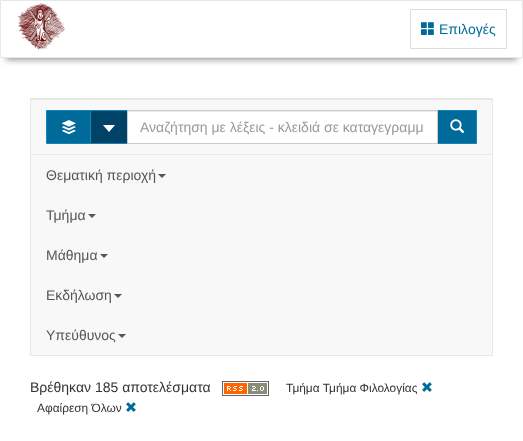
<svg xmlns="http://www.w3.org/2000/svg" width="523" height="441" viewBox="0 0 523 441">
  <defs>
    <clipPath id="clip1"><path d="M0 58h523v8H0z"/></clipPath>
  </defs>
  <rect width="100%" height="100%" fill="#fff"/>
  <g clip-path="url(#clip1)">
    <path d="M6 14h511v46H6z" fill="#999" filter="blur(3px)"/>
  </g>
  <path d="M0.5 0.5h522v57H0.5z" fill="none" stroke="#e7e7e7"/>
  <image x="17" y="3" width="49" height="47" href="img/1.png"/>
  <path d="M410.5 9.5h96v39H410.5z" fill="none" stroke="#ddd"/>
  <image x="421" y="22" width="13" height="13" href="img/2.png"/>
  <path d="M31 100h461v255H31z" fill="#f8f8f8"/>
  <path d="M30.5 98.5h462v257H30.5z" fill="none" stroke="#e7e7e7"/>
  <path d="M31 99h461v1H31z" fill="#e7e7e7"/>
  <path d="M31 154h461v1H31z" fill="#e7e7e7"/>
  <path d="M47 111h43v32H47z" fill="#006a9b"/>
  <path d="M46.5 110.5h45v33H46.5z" fill="none" stroke="#1385ba"/>
  <image x="62" y="120" width="14" height="15" href="img/3.png"/>
  <path d="M90.5 110.5h37v33H90.5z" fill="#004367" stroke="#1385ba"/>
  <path d="M103 125H115L109 132Z" fill="#fff"/>
  <path d="M128 112h309v31H128z" fill="#fff"/>
  <path d="M128 111h309v1H128z" fill="#ececec"/>
  <path d="M437.5 110.5h39v33H437.5z" fill="#006a9b" stroke="#1385ba"/>
  <path d="M127.5 110.5h310v33H127.5z" fill="none" stroke="#ccc"/>
  <image x="450" y="119" width="15" height="15" href="img/4.png"/>
  <path d="M158 174H166L162 178Z" fill="#555"/>
  <path d="M88 214H96L92 218Z" fill="#555"/>
  <path d="M100 254H108L104 258Z" fill="#555"/>
  <path d="M114 294H122L118 298Z" fill="#555"/>
  <path d="M118 334H126L122 338Z" fill="#555"/>
  <image x="222" y="381" width="47" height="15" href="img/5.png"/>
  <image x="422" y="382" width="10" height="10" href="img/6.png"/>
  <image x="126" y="402" width="10" height="10" href="img/6.png"/>
  <text x="439" y="34" font-family="Liberation Sans" font-size="14" fill="#006a9b">Επιλογές</text>
  <text x="140" y="132" font-family="Liberation Sans" font-size="14" fill="#999">Αναζήτηση με λέξεις - κλειδιά σε καταγεγραμμ</text>
  <g font-family="Liberation Sans" font-size="14" fill="#555">
    <text x="46" y="180">Θεματική περιοχή</text>
    <text x="46" y="220">Τμήμα</text>
    <text x="46" y="260">Μάθημα</text>
    <text x="46" y="300">Εκδήλωση</text>
    <text x="46" y="340">Υπεύθυνος</text>
  </g>
  <text x="30" y="392" font-family="Liberation Sans" font-size="14" fill="#333">Βρέθηκαν 185 αποτελέσματα</text>
  <g font-family="Liberation Sans" font-size="11.9" fill="#333">
    <text x="286" y="392">Τμήμα Τμήμα Φιλολογίας</text>
    <text x="37" y="412">Αφαίρεση Όλων</text>
  </g>
</svg>
